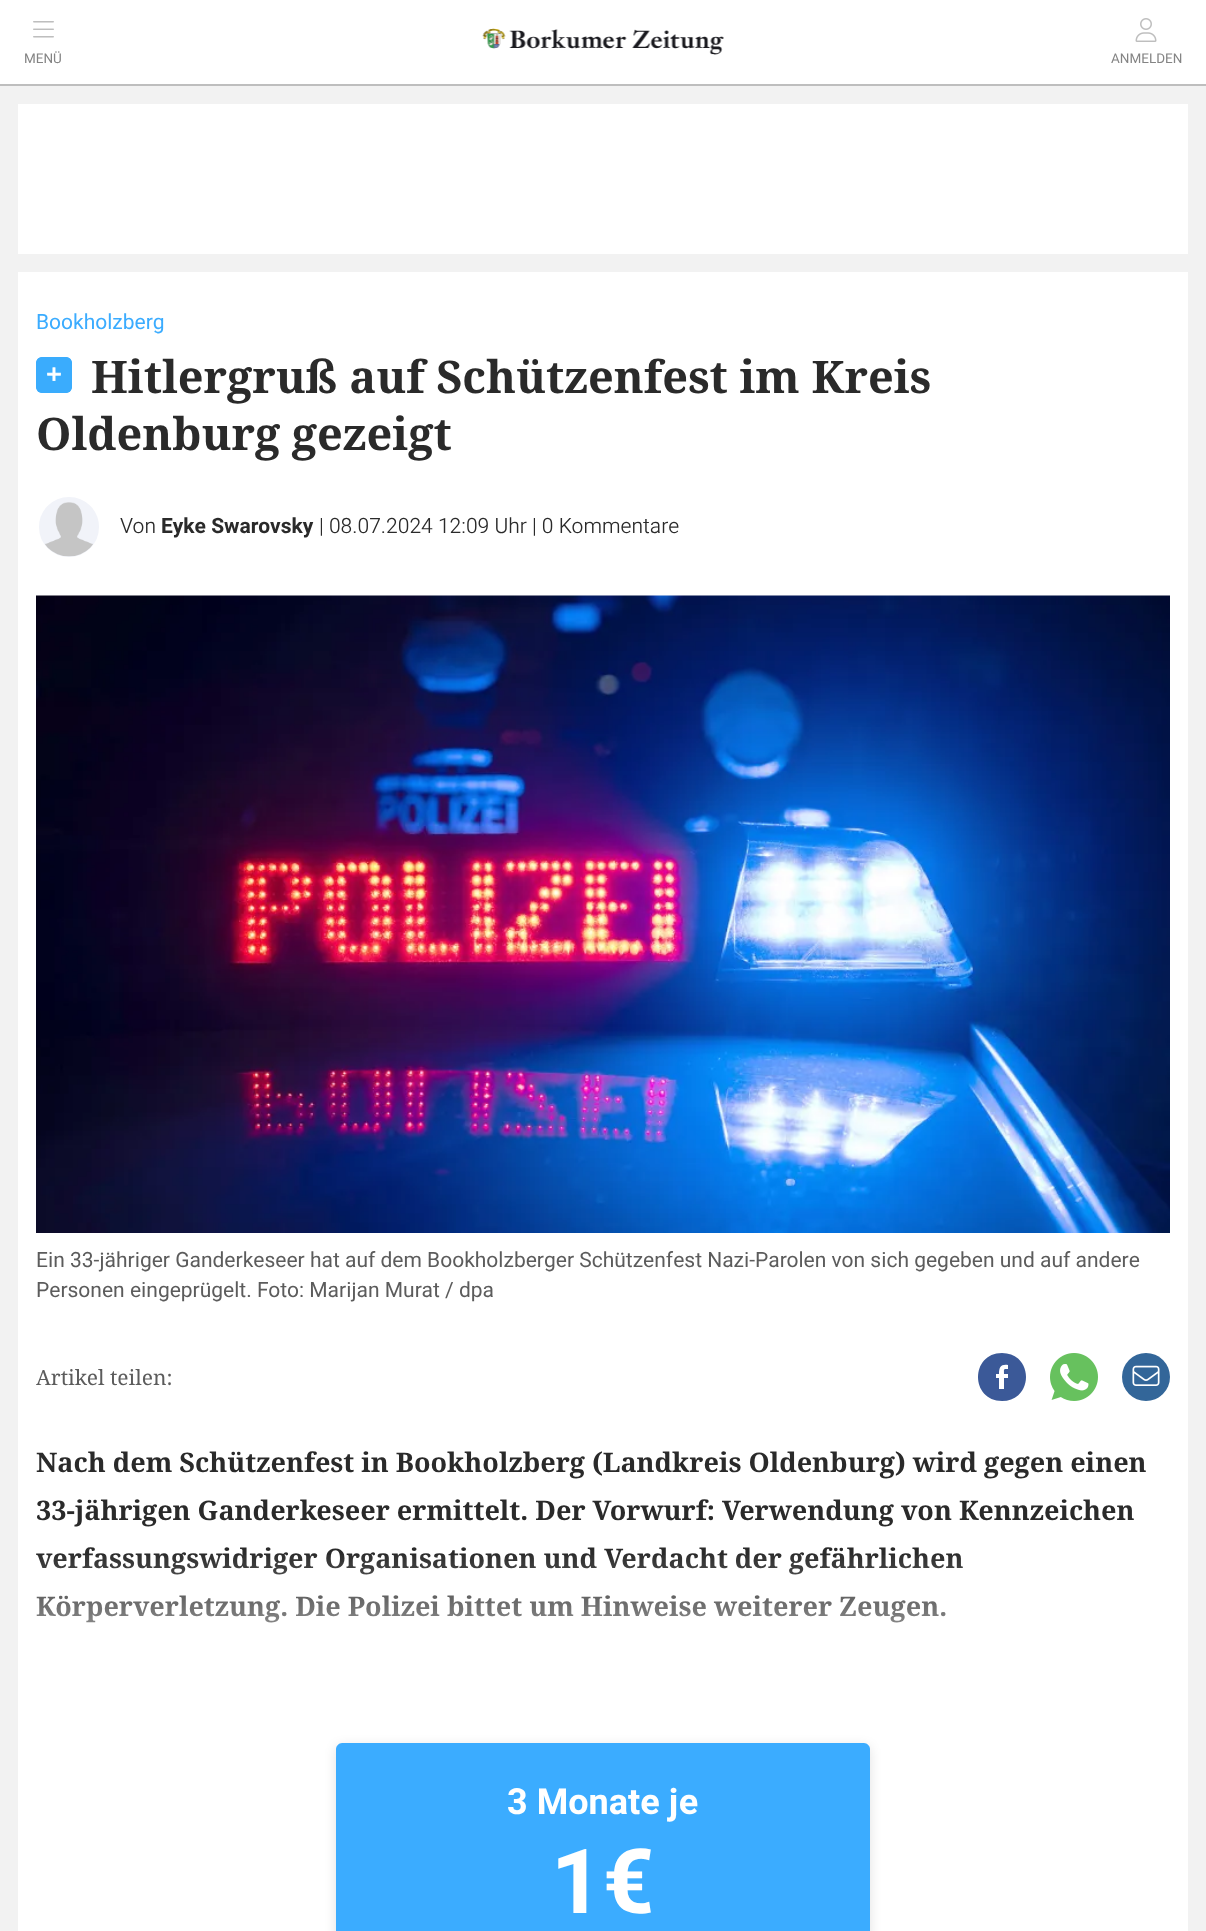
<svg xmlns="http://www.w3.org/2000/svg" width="1206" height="1931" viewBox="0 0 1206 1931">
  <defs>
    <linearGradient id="g1" gradientUnits="userSpaceOnUse" x1="603" y1="1719" x2="603" y2="1551"><stop offset="0" stop-color="#fff"/><stop offset="1" stop-color="#fff" stop-opacity="0"/></linearGradient>
  </defs>
  <rect width="100%" height="100%" fill="#f2f2f2"/>
  <path d="M0 0h1206v84H0z" fill="#fff"/>
  <path d="M0 84h1206v2H0z" fill="#bebebe"/>
  <image x="482" y="28" width="242" height="27" href="img/1.png"/>
  <image x="33" y="21" width="21" height="17" href="img/2.png"/>
  <image x="1135" y="18" width="22" height="24" href="img/3.png"/>
  <path d="M18 104h1170v150H18z" fill="#fff"/>
  <path d="M18 272h1170v1659H18z" fill="#fff"/>
  <rect x="36" y="357" width="36" height="36" rx="6" fill="#3bacff"/>
  <image x="36" y="357" width="36" height="36" href="img/4.png"/>
  <circle cx="69" cy="527" r="31.5" fill="#f1f3f9" stroke="#fff" stroke-width="3"/>
  <image x="45" y="502" width="48" height="55" href="img/5.png"/>
  <image x="36" y="595" width="1134" height="638" href="img/6.png"/>
  <path d="M1008 1369C1003 1369 1004 1369 1004 1374H1008V1378H1004V1389H999V1378H996V1374H999C999 1367 1001 1364 1008 1365ZM1002 1353C970 1353 970 1401 1002 1401C1034 1401 1034 1353 1002 1353Z" fill="#3b5998" fill-rule="evenodd"/>
  <image x="1050" y="1353" width="48" height="48" href="img/7.png"/>
  <circle cx="1146" cy="1377" r="24" fill="#369"/>
  <image x="1132" y="1365" width="28" height="21" href="img/8.png"/>
  <rect x="336" y="1746" width="534" height="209" rx="6" fill="#0000001f" filter="blur(6px)"/>
  <path d="M342 1743H864C867 1743 870 1746 870 1749V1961C712 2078 494 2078 336 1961V1749C336 1746 339 1743 342 1743Z" fill="#3bacff"/>
  <g font-family="Heebo" font-size="13.5" fill="#848484">
    <text x="24" y="63">MENÜ</text>
    <text x="1111" y="63">ANMELDEN</text>
  </g>
  <text x="36" y="329" font-family="Heebo" font-size="21" fill="#3bacff">Bookholzberg</text>
  <g font-family="Noto Serif" font-size="45" font-weight="bold" fill="#2a2a2a">
    <text x="91" y="393">Hitlergruß auf Schützenfest im Kreis</text>
    <text x="36" y="450">Oldenburg gezeigt</text>
  </g>
  <text x="120" y="533" font-family="Heebo" font-size="21" font-weight="300" fill="#2a2a2a">Von</text>
  <text x="161" y="533" font-family="Heebo" font-size="21" font-weight="bold" fill="#2a2a2a">Eyke Swarovsky</text>
  <text x="319" y="533" font-family="Heebo" font-size="21" font-weight="300" fill="#2a2a2a">| 08.07.2024 12:09 Uhr | 0 Kommentare</text>
  <g font-family="Heebo" font-size="21" fill="#5c5c5c">
    <text x="36" y="1267">Ein 33-jähriger Ganderkeseer hat auf dem Bookholzberger Schützenfest Nazi-Parolen von sich gegeben und auf andere</text>
    <text x="36" y="1297">Personen eingeprügelt. Foto: Marijan Murat / dpa</text>
  </g>
  <text x="36" y="1385" font-family="Noto Serif" font-size="21" fill="#5c5c5c">Artikel teilen:</text>
  <g font-family="Noto Serif" font-size="27" font-weight="bold" fill="#2a2a2a">
    <text x="36" y="1472">Nach dem Schützenfest in Bookholzberg (Landkreis Oldenburg) wird gegen einen</text>
    <text x="36" y="1520">33-jährigen Ganderkeseer ermittelt. Der Vorwurf: Verwendung von Kennzeichen</text>
    <text x="36" y="1568">verfassungswidriger Organisationen und Verdacht der gefährlichen</text>
    <text x="36" y="1616">Körperverletzung. Die Polizei bittet um Hinweise weiterer Zeugen.</text>
  </g>
  <path d="M36 1555h927v68H36z" fill="url(#g1)"/>
  <text x="507" y="1814" font-family="Heebo" font-size="36" font-weight="bold" fill="#fff">3 Monate je</text>
  <text x="551" y="1913" font-family="Heebo" font-size="90" font-weight="bold" fill="#fff">1€</text>
</svg>
